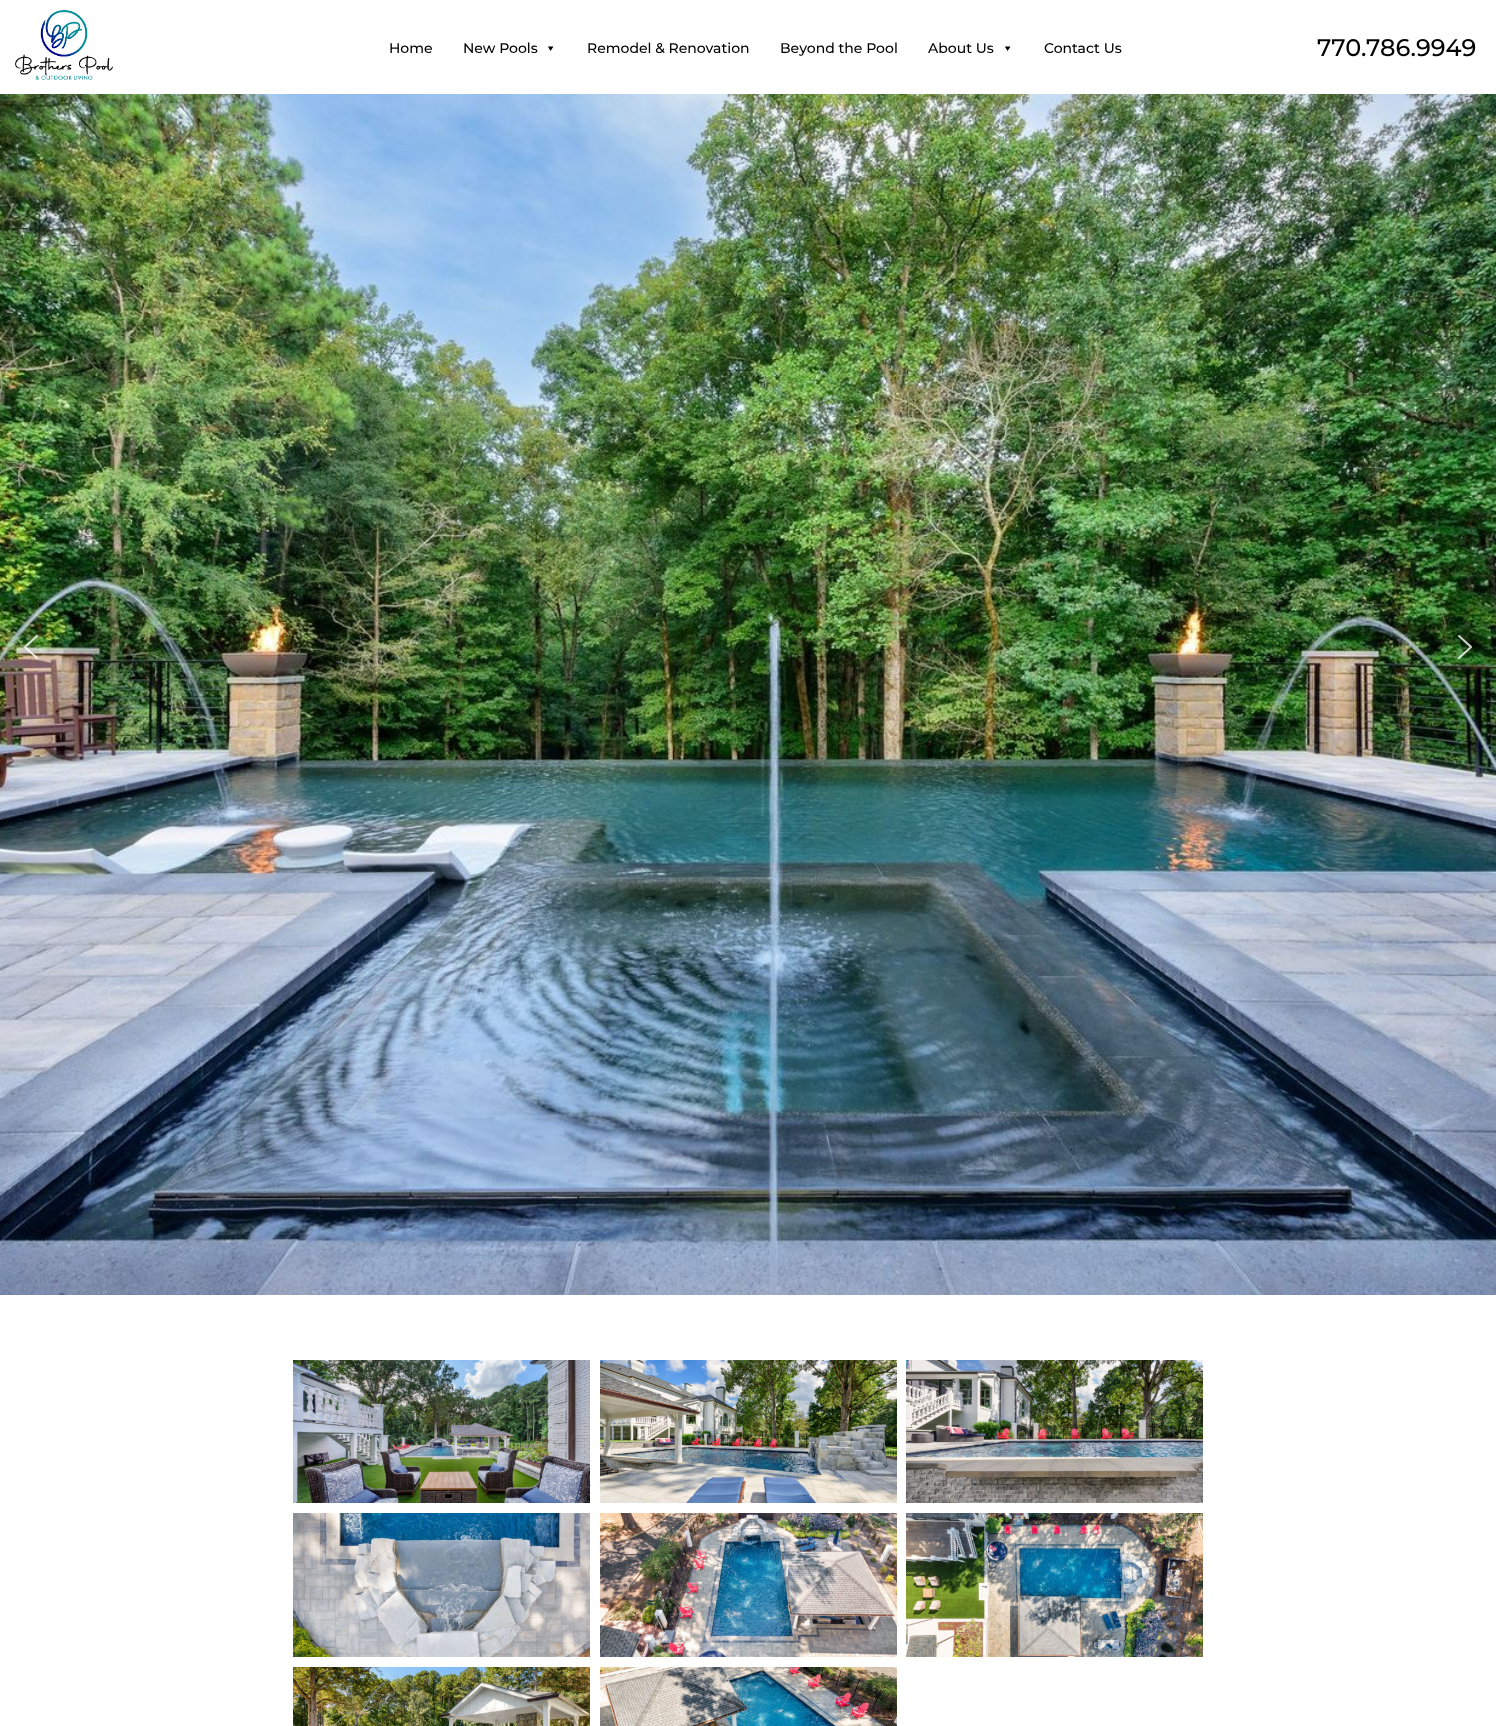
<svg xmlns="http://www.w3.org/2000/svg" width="1496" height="1726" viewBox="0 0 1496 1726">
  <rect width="100%" height="100%" fill="#fff"/>
  <image x="15" y="10" width="98" height="70" href="img/1.png"/>
  <path d="M553.5 46.5L550.5 51L548 46.5Z" fill="#000"/>
  <path d="M1010.5 46.5L1007.5 51L1005 46.5Z" fill="#000"/>
  <image x="0" y="94" width="1496" height="1201" href="img/2.png"/>
  <image x="24" y="635" width="14" height="24" href="img/3.png"/>
  <image x="1458" y="635" width="14" height="24" href="img/4.png"/>
  <image x="293" y="1360" width="297" height="143" href="img/5.png"/>
  <image x="293" y="1513" width="297" height="144" href="img/6.png"/>
  <image x="293" y="1667" width="297" height="59" href="img/7.png"/>
  <image x="600" y="1360" width="297" height="143" href="img/8.png"/>
  <image x="600" y="1513" width="297" height="144" href="img/9.png"/>
  <image x="600" y="1667" width="297" height="59" href="img/10.png"/>
  <image x="906" y="1360" width="297" height="143" href="img/11.png"/>
  <image x="906" y="1513" width="297" height="144" href="img/12.png"/>
  <g font-family="Montserrat" font-size="14" font-weight="500" fill="#000">
    <text x="389" y="53">Home</text>
    <text x="463" y="53">New Pools</text>
    <text x="587" y="53">Remodel &amp; Renovation</text>
    <text x="780" y="53">Beyond the Pool</text>
    <text x="928" y="53">About Us</text>
    <text x="1044" y="53">Contact Us</text>
  </g>
  <text x="1317" y="56" font-family="Montserrat" font-size="24" font-weight="500" fill="#000">770.786.9949</text>
</svg>
